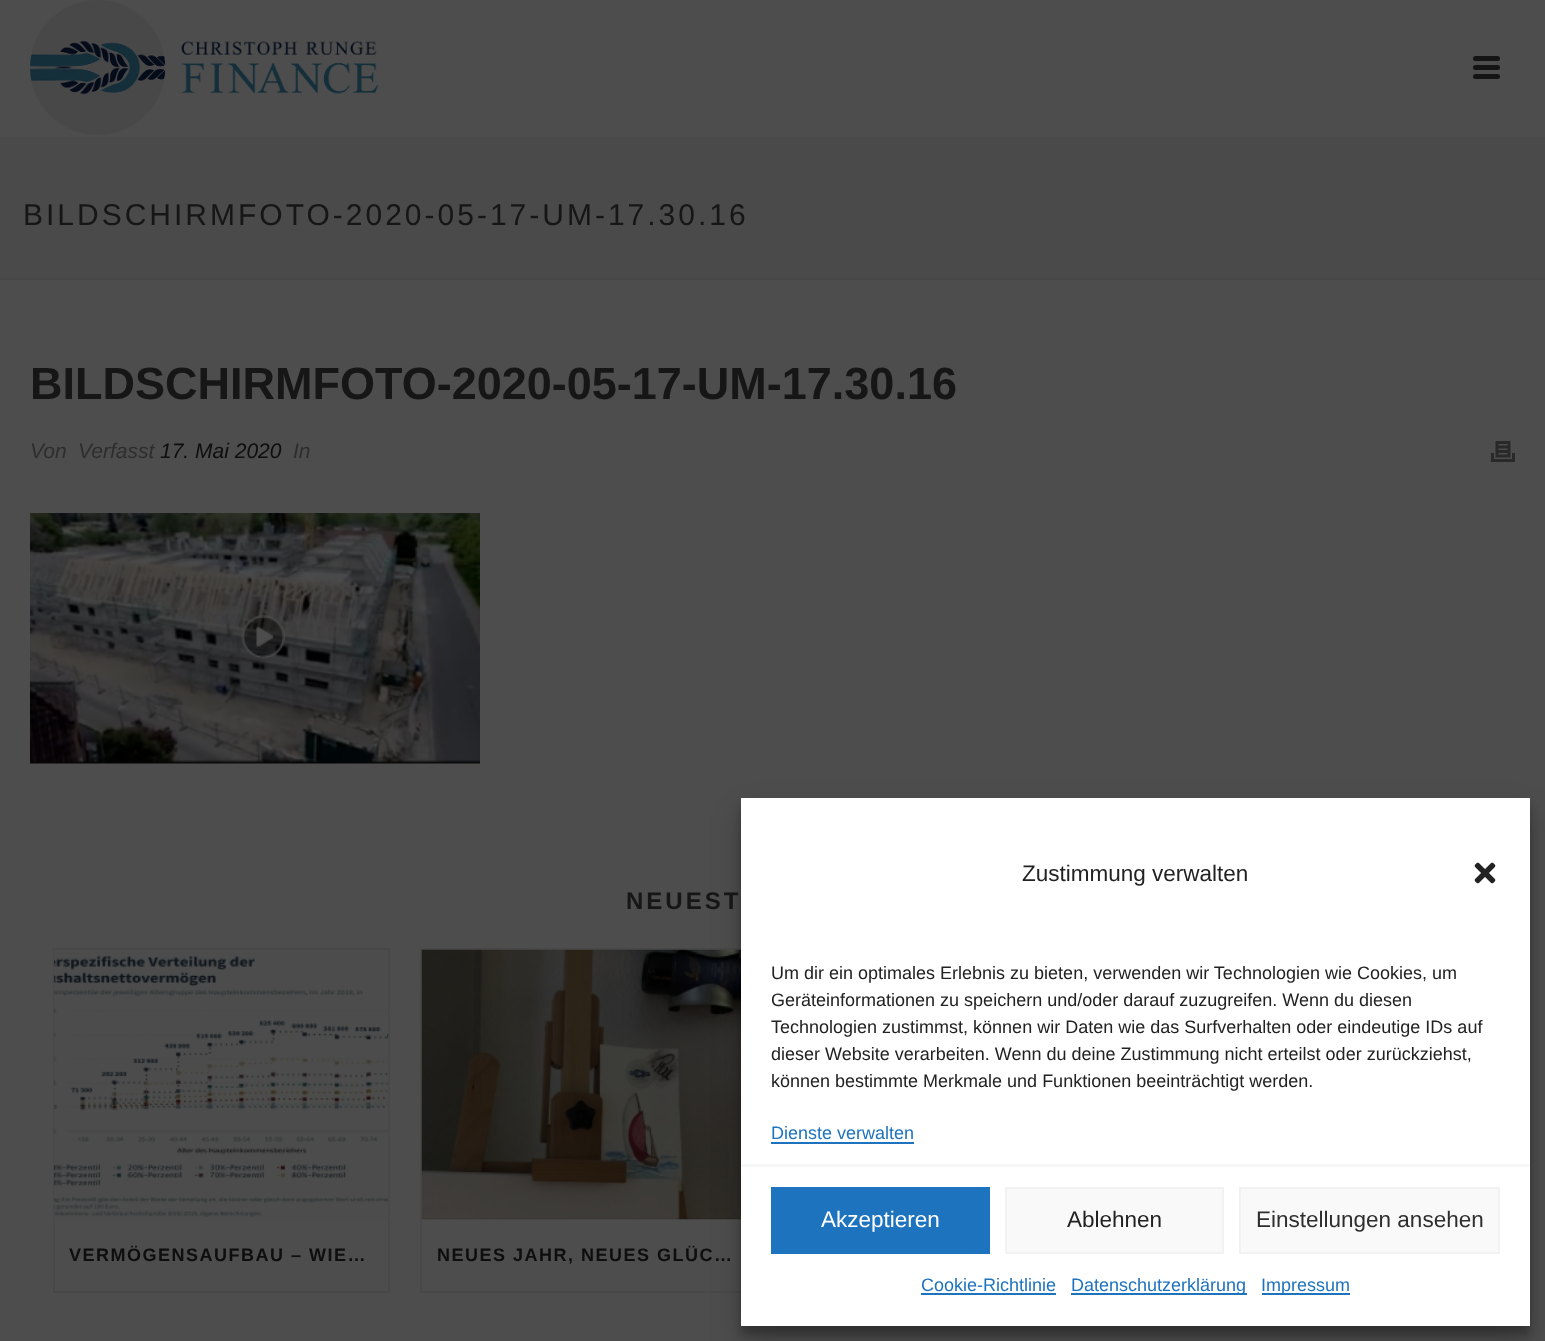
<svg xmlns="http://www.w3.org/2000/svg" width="1545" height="1341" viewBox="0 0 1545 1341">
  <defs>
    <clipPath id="clip1"><path d="M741 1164h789v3H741z"/></clipPath>
  </defs>
  <rect width="100%" height="100%" fill="#4d4d4d"/>
  <path d="M0 137h1545v141H0z" fill="#4a4a4a"/>
  <path d="M0 278h1545v2H0z" fill="#474747"/>
  <image x="30" y="0" width="348" height="135" href="img/1.png"/>
  <rect x="1473" y="56" width="27" height="5" rx="2.5" fill="#141414"/>
  <rect x="1473" y="65" width="27" height="5" rx="2.5" fill="#141414"/>
  <rect x="1473" y="74" width="27" height="5" rx="2.5" fill="#141414"/>
  <image x="1491" y="441" width="24" height="21" href="img/2.png"/>
  <image x="30" y="513" width="450" height="251" href="img/3.png"/>
  <path d="M54 949h335v343H54z" fill="none" stroke="#484848" stroke-width="2"/>
  <image x="54" y="949" width="335" height="271" href="img/4.png"/>
  <path d="M421 949h337v343H421z" fill="none" stroke="#484848" stroke-width="2"/>
  <image x="421" y="949" width="320" height="271" href="img/5.png"/>
  <path d="M741 807h789v528H741z" fill="#0000003b" filter="blur(4.5px)"/>
  <path d="M741 813h789v528H741z" fill="#00000030" filter="blur(15px)"/>
  <path d="M741 798h789v528H741z" fill="#fff"/>
  <image x="1474" y="862" width="22" height="22" href="img/6.png"/>
  <path d="M771 1142h143v2H771z" fill="#1e73be"/>
  <g clip-path="url(#clip1)">
    <path d="M741 1164h789v5H741z" fill="#0000000d" filter="blur(2px)"/>
  </g>
  <path d="M771 1187h219v67H771z" fill="#1e73be"/>
  <path d="M1006 1188h217v65H1006z" fill="#f9f9f9" stroke="#f2f2f2" stroke-width="2"/>
  <path d="M1240 1188h259v65H1240z" fill="#f9f9f9" stroke="#f2f2f2" stroke-width="2"/>
  <path d="M921 1293h135v2H921z" fill="#1e73be"/>
  <path d="M1071 1293h176v2H1071z" fill="#1e73be"/>
  <path d="M1262 1293h88v2H1262z" fill="#1e73be"/>
  <text x="23" y="225" font-family="Liberation Sans" font-size="30" letter-spacing="3" fill="#161616">BILDSCHIRMFOTO-2020-05-17-UM-17.30.16</text>
  <text x="30" y="399" font-family="Liberation Sans" font-size="45" font-weight="bold" fill="#161616">BILDSCHIRMFOTO-2020-05-17-UM-17.30.16</text>
  <g font-family="Liberation Sans" font-size="21" font-style="italic" fill="#2e2e2e">
    <text x="30" y="458">Von</text>
    <text x="78" y="458">Verfasst</text>
  </g>
  <text x="160" y="458" font-family="Liberation Sans" font-size="21" font-style="italic" fill="#0e0e0e">17. Mai 2020</text>
  <text x="293" y="458" font-family="Liberation Sans" font-size="21" font-style="italic" fill="#2e2e2e">In</text>
  <text x="626" y="909" font-family="Liberation Sans" font-size="24" font-weight="bold" letter-spacing="3" fill="#161616">NEUEST</text>
  <g font-family="Liberation Sans" font-size="18" font-weight="bold" letter-spacing="1.5" fill="#0e0e0e">
    <text x="69" y="1261">VERMÖGENSAUFBAU – WIE…</text>
    <text x="437" y="1261">NEUES JAHR, NEUES GLÜC…</text>
  </g>
  <text x="1022" y="881" font-family="Liberation Sans" font-size="22.5" fill="#222">Zustimmung verwalten</text>
  <g font-family="Liberation Sans" font-size="18" fill="#222">
    <text x="771" y="979">Um dir ein optimales Erlebnis zu bieten, verwenden wir Technologien wie Cookies, um</text>
    <text x="771" y="1006">Geräteinformationen zu speichern und/oder darauf zuzugreifen. Wenn du diesen</text>
    <text x="771" y="1033">Technologien zustimmst, können wir Daten wie das Surfverhalten oder eindeutige IDs auf</text>
    <text x="771" y="1060">dieser Website verarbeiten. Wenn du deine Zustimmung nicht erteilst oder zurückziehst,</text>
    <text x="771" y="1087">können bestimmte Merkmale und Funktionen beeinträchtigt werden.</text>
  </g>
  <text x="771" y="1139" font-family="Liberation Sans" font-size="18" fill="#1e73be">Dienste verwalten</text>
  <text x="821" y="1227" font-family="Liberation Sans" font-size="22.5" fill="#fff">Akzeptieren</text>
  <text x="1067" y="1227" font-family="Liberation Sans" font-size="22.5" fill="#222">Ablehnen</text>
  <text x="1256" y="1227" font-family="Liberation Sans" font-size="22.5" fill="#2e2e2e">Einstellungen ansehen</text>
  <g font-family="Liberation Sans" font-size="18" fill="#1e73be">
    <text x="921" y="1291">Cookie-Richtlinie</text>
    <text x="1071" y="1291">Datenschutzerklärung</text>
    <text x="1261" y="1291">Impressum</text>
  </g>
</svg>
